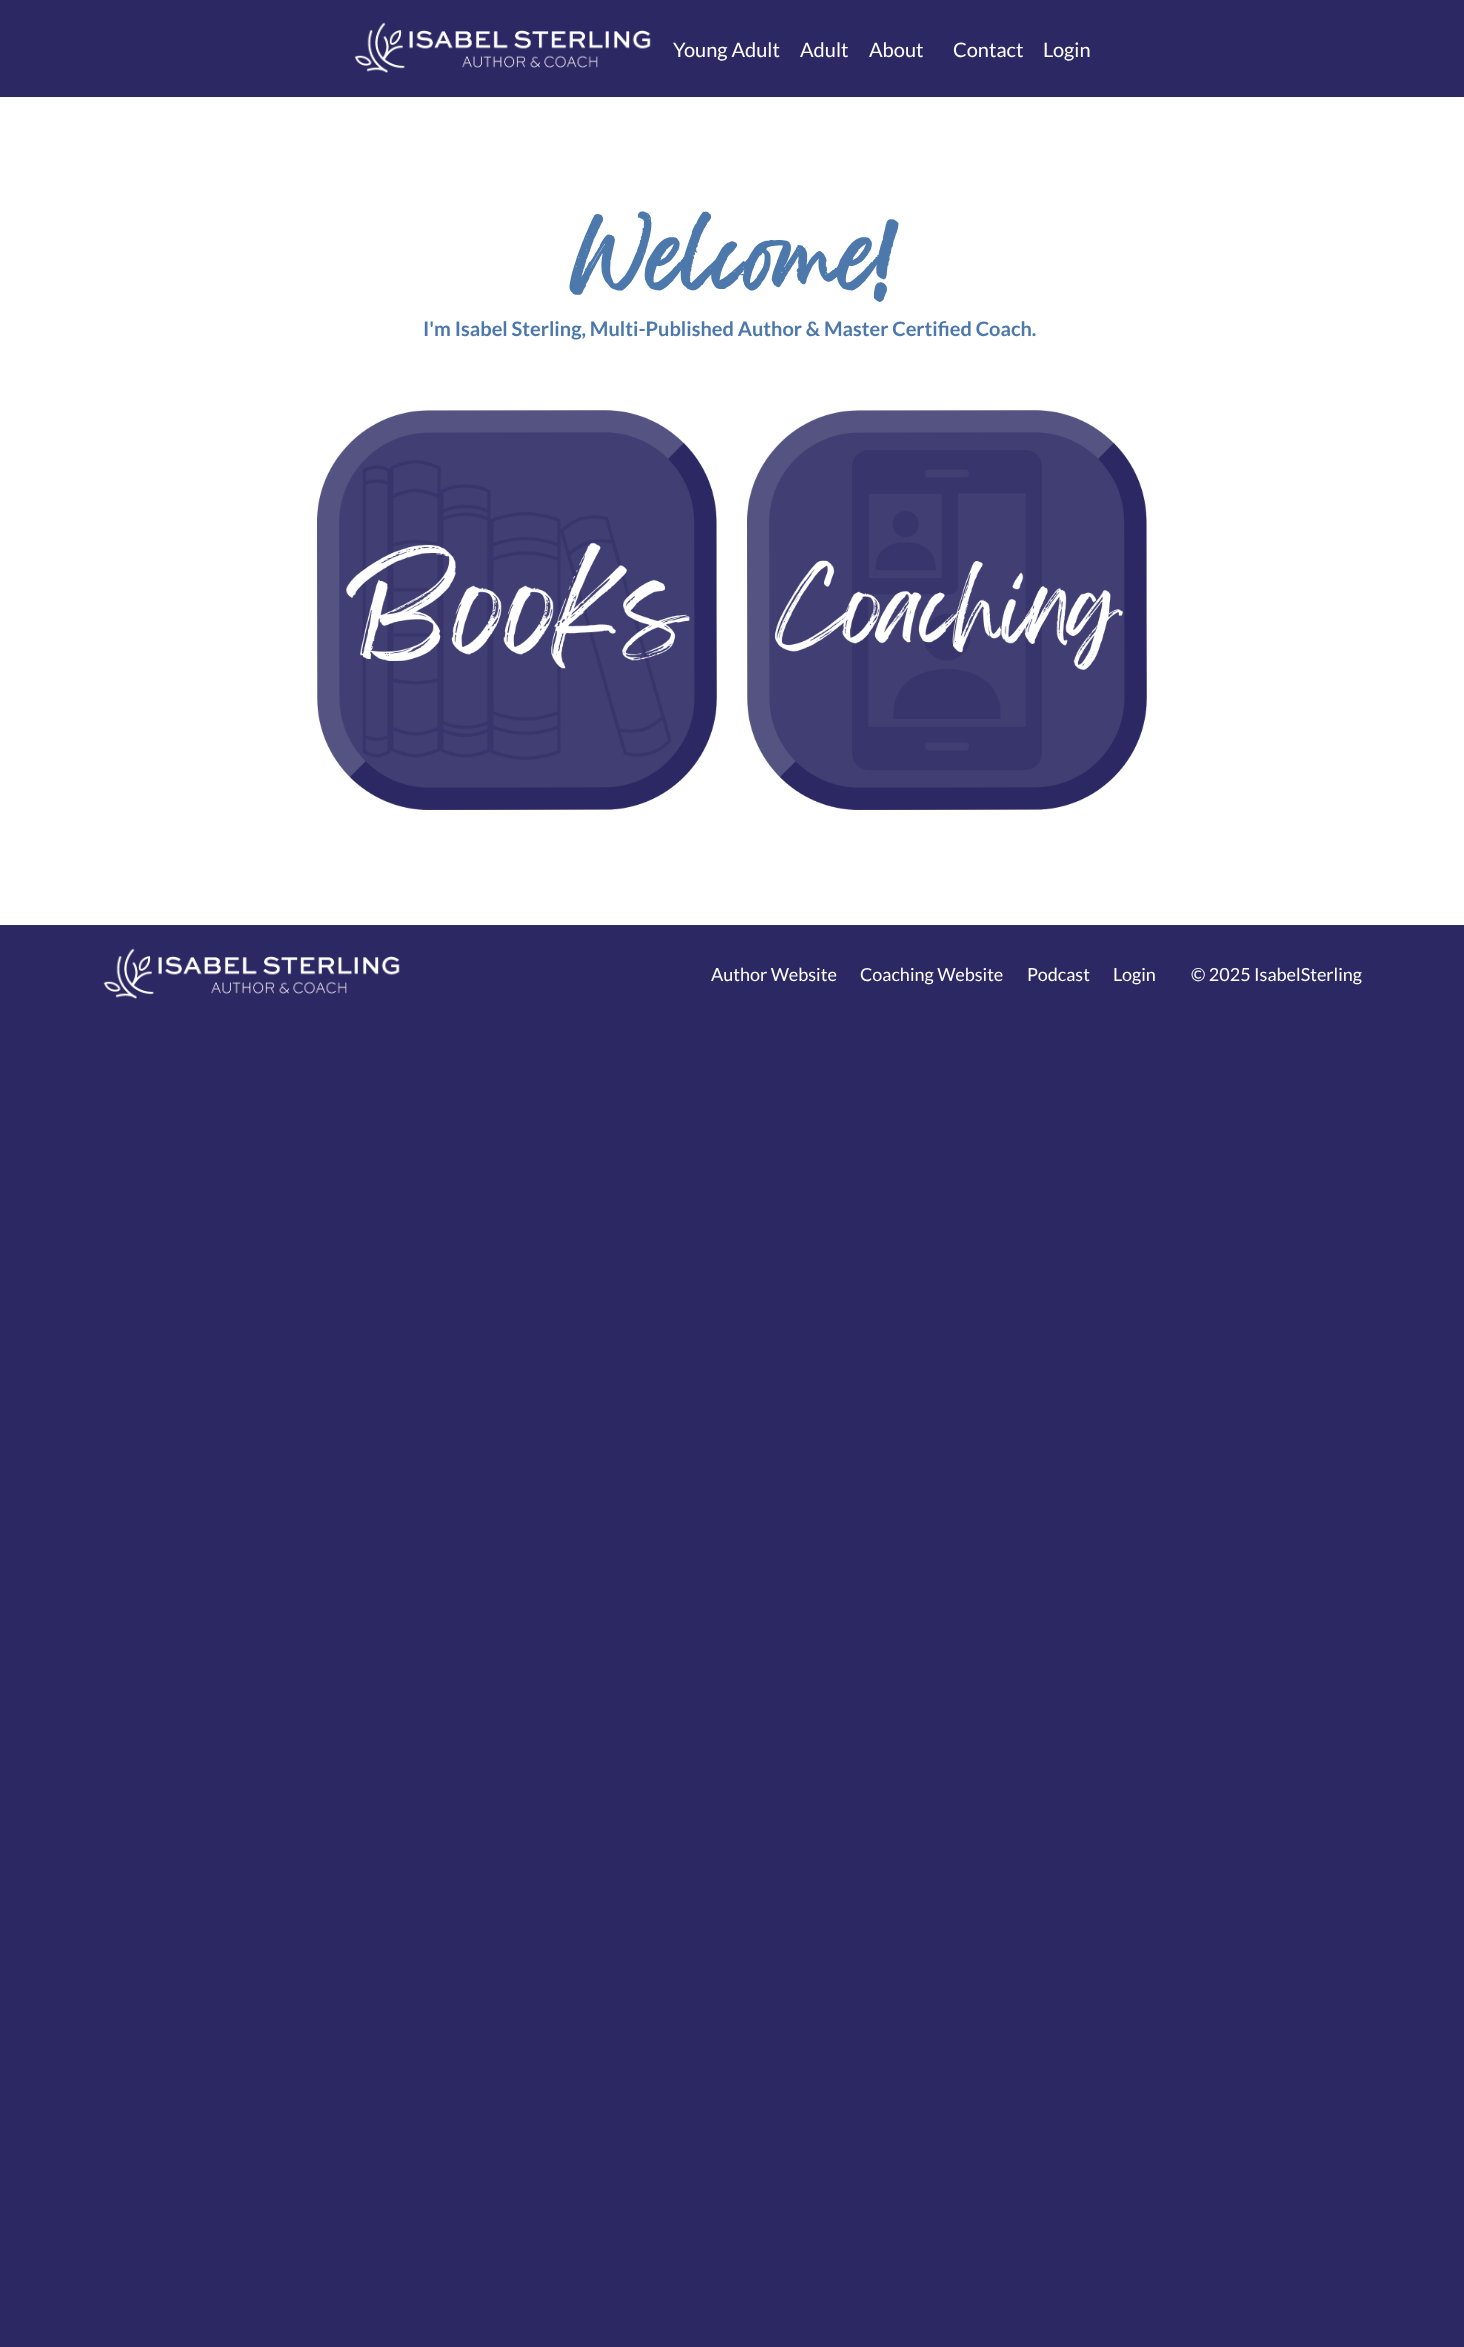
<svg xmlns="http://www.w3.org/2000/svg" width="1464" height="2347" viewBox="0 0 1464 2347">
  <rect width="100%" height="100%" fill="#fff"/>
  <path d="M0 0h1464v97H0z" fill="#2b2863"/>
  <image x="354" y="22" width="297" height="51" href="img/1.png"/>
  <image x="317" y="410" width="400" height="400" href="img/2.png"/>
  <image x="747" y="410" width="400" height="400" href="img/3.png"/>
  <path d="M0 925h1464v1422H0z" fill="#2b2863"/>
  <image x="103" y="948" width="297" height="51" href="img/1.png"/>
  <g font-family="Lato" font-size="20" fill="#fff">
    <text x="673" y="57">Young Adult</text>
    <text x="800" y="57">Adult</text>
    <text x="869" y="57">About</text>
    <text x="953" y="57">Contact</text>
    <text x="1043" y="57">Login</text>
  </g>
  <text x="569" y="295" font-family="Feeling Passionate" font-size="80" font-weight="bold" fill="#4d78ac">Welcome!</text>
  <text x="423" y="336" font-family="Lato" font-size="20" font-weight="bold" fill="#4d78ac">I'm Isabel Sterling, Multi-Published Author &amp; Master Certified Coach.</text>
  <g font-family="Lato" font-size="18" fill="#fff">
    <text x="711" y="981">Author Website</text>
    <text x="860" y="981">Coaching Website</text>
    <text x="1027" y="981">Podcast</text>
    <text x="1113" y="981">Login</text>
    <text x="1191" y="981">© 2025 IsabelSterling</text>
  </g>
</svg>
